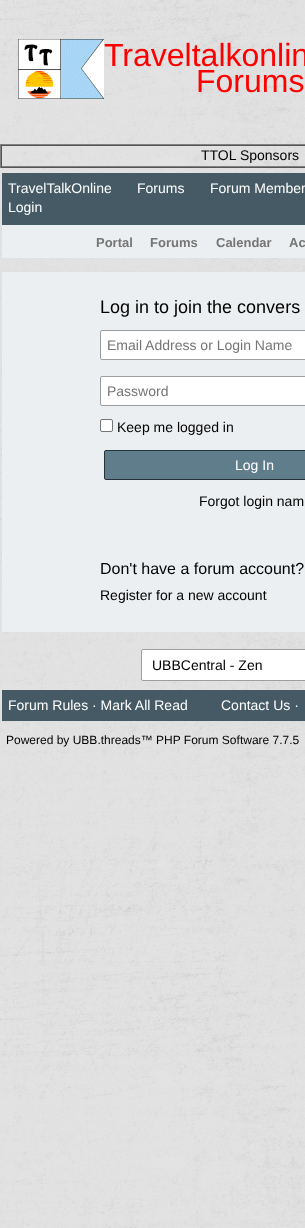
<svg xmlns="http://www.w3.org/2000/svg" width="305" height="1228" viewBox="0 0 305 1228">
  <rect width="100%" height="100%" fill="#fff"/>
  <image x="0" y="0" width="305" height="1228" href="img/1.png"/>
  <image x="18" y="39" width="86" height="60" href="img/2.png"/>
  <path d="M0 144h305v1H0z" fill="#808080"/>
  <path d="M0 167h305v1H0z" fill="#555"/>
  <path d="M0 144h1v24H0z" fill="#808080"/>
  <path d="M1 145h304v1H1z" fill="#555"/>
  <path d="M1 166h304v1H1z" fill="#808080"/>
  <path d="M1 145h1v22H1z" fill="#555"/>
  <path d="M2 173h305v85H2z" fill="#263238" filter="blur(0.5px)"/>
  <path d="M2 173h303v52H2z" fill="#455a64"/>
  <path d="M2 225h303v33H2z" fill="#eceff1"/>
  <path d="M2 271h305v361H2z" fill="#263238" filter="blur(0.5px)"/>
  <path d="M2 272h303v360H2z" fill="#eceff1"/>
  <path d="M2 271h303v1H2z" fill="#e0e0e0"/>
  <rect x="100.5" y="330.5" width="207" height="29" rx="1.5" fill="#fff" stroke="#9e9e9e"/>
  <rect x="100.5" y="376.5" width="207" height="29" rx="1.5" fill="#fff" stroke="#9e9e9e"/>
  <rect x="100.5" y="419.5" width="12" height="12" rx="1.5" fill="#fff" stroke="#767676"/>
  <rect x="104.5" y="450.5" width="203" height="29" rx="1.5" fill="#607d8b" stroke="#263238"/>
  <rect x="141.5" y="649.5" width="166" height="31" rx="1.5" fill="#fff" stroke="#9e9e9e"/>
  <path d="M2 690h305v31H2z" fill="#263238" filter="blur(0.5px)"/>
  <path d="M2 690h303v31H2z" fill="#455a64"/>
  <g font-family="Liberation Sans" font-size="32" fill="#f00">
    <text x="104" y="66">Traveltalkonlin</text>
    <text x="196" y="92">Forums</text>
  </g>
  <text x="201" y="160" font-family="Liberation Sans" font-size="14" fill="#000">TTOL Sponsors</text>
  <g font-family="Liberation Sans" font-size="14" fill="#fff">
    <text x="8" y="193">TravelTalkOnline</text>
    <text x="137" y="193">Forums</text>
    <text x="210" y="193">Forum Member</text>
    <text x="8" y="212">Login</text>
  </g>
  <g font-family="Liberation Sans" font-size="13" font-weight="bold" fill="#757575">
    <text x="96" y="247">Portal</text>
    <text x="150" y="247">Forums</text>
    <text x="216" y="247">Calendar</text>
    <text x="289" y="247">Ac</text>
  </g>
  <text x="100" y="313" font-family="Liberation Sans" font-size="18" fill="#000">Log in to join the convers</text>
  <g font-family="Liberation Sans" font-size="14" fill="#757575">
    <text x="107" y="350">Email Address or Login Name</text>
    <text x="107" y="396">Password</text>
  </g>
  <text x="117" y="432" font-family="Liberation Sans" font-size="14" fill="#000">Keep me logged in</text>
  <text x="235" y="470" font-family="Liberation Sans" font-size="14" fill="#fff">Log In</text>
  <text x="199" y="506" font-family="Liberation Sans" font-size="14" fill="#000">Forgot login nam</text>
  <text x="100" y="574" font-family="Liberation Sans" font-size="16" fill="#000">Don't have a forum account?</text>
  <g font-family="Liberation Sans" font-size="14" fill="#000">
    <text x="100" y="600">Register for a new account</text>
    <text x="152" y="670">UBBCentral - Zen</text>
  </g>
  <g font-family="Liberation Sans" font-size="14" fill="#fff">
    <text x="8" y="710">Forum Rules · Mark All Read</text>
    <text x="221" y="710">Contact Us ·</text>
  </g>
  <text x="6" y="744" font-family="Liberation Sans" font-size="12" fill="#000">Powered by UBB.threads™ PHP Forum Software 7.7.5</text>
</svg>
